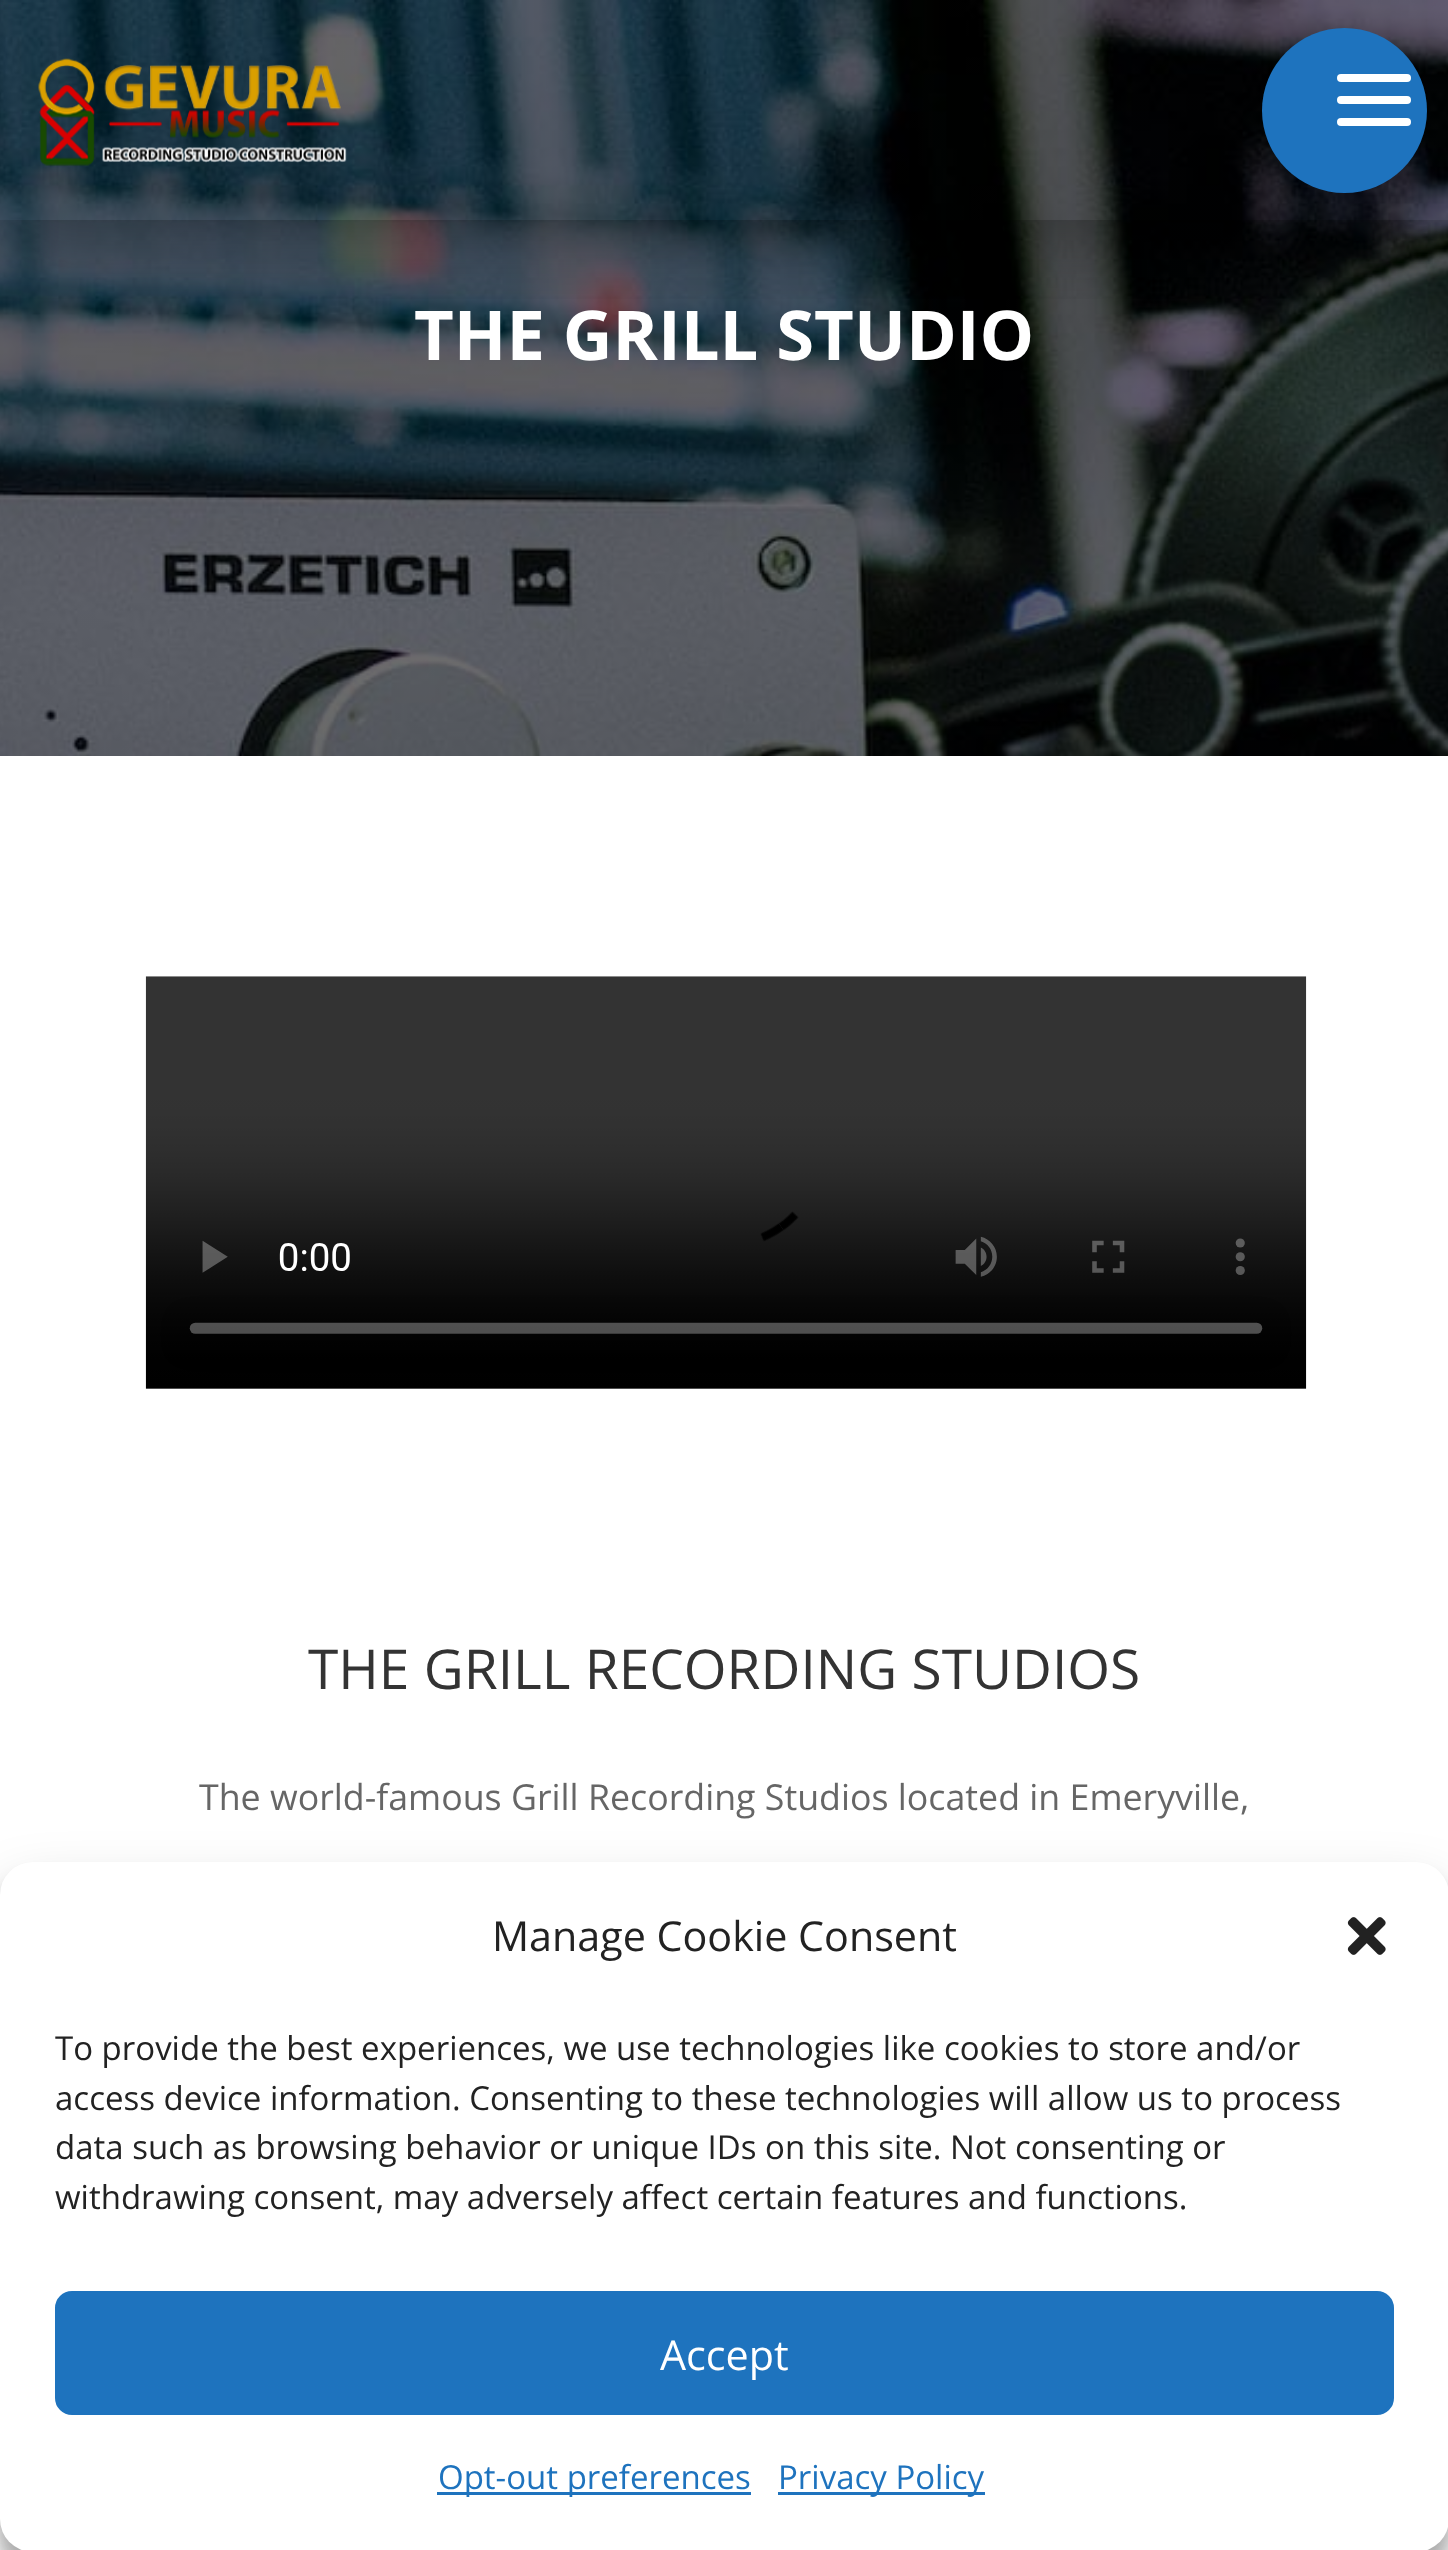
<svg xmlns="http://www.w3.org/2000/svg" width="1448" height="2550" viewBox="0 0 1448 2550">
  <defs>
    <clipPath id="clip1"><path d="M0 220h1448v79H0z"/></clipPath>
  </defs>
  <rect width="100%" height="100%" fill="#fff"/>
  <image x="0" y="0" width="1448" height="756" href="img/2.png"/>
  <g clip-path="url(#clip1)">
    <path d="M0 17h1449v220H0z" fill="#0000004d" filter="blur(41px)"/>
  </g>
  <image x="38" y="58" width="309" height="108" href="img/1.png"/>
  <circle cx="1344.5" cy="110.5" r="82.5" fill="#1e73be"/>
  <rect x="1337" y="96" width="74" height="8" rx="4" fill="#fff"/>
  <rect x="1337" y="74" width="74" height="8" rx="4" fill="#fff"/>
  <rect x="1337" y="118" width="74" height="8" rx="4" fill="#fff"/>
  <image x="145" y="976" width="1162" height="413" href="img/3.png"/>
  <rect y="1878" width="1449" height="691" rx="33" fill="#0000003b" filter="blur(8px)"/>
  <rect y="1889" width="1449" height="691" rx="33" fill="#00000030" filter="blur(27.5px)"/>
  <rect y="1862" width="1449" height="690" rx="33" fill="#fff"/>
  <image x="1347" y="1917" width="39" height="38" href="img/4.png"/>
  <rect x="56.5" y="2292.5" width="1336" height="121" rx="15.5" fill="#1e73be" stroke="#1e73be" stroke-width="3"/>
  <path d="M437 2492h314v3H437z" fill="#1e73be"/>
  <path d="M778 2492h207v3H778z" fill="#1e73be"/>
  <text x="414" y="360" font-family="Open Sans" font-size="68.75" font-weight="bold" fill="#fff">THE GRILL STUDIO</text>
  <text x="308" y="1689" font-family="Open Sans" font-size="55" fill="#333">THE GRILL RECORDING STUDIOS</text>
  <text x="199" y="1810" font-family="Open Sans" font-size="35.75" fill="#666">The world-famous Grill Recording Studios located in Emeryville,</text>
  <text x="492" y="1951" font-family="Open Sans" font-size="41.25" fill="#222">Manage Cookie Consent</text>
  <g font-family="Open Sans" font-size="33" fill="#222">
    <text x="55" y="2060">To provide the best experiences, we use technologies like cookies to store and/or</text>
    <text x="55" y="2110">access device information. Consenting to these technologies will allow us to process</text>
    <text x="55" y="2159">data such as browsing behavior or unique IDs on this site. Not consenting or</text>
    <text x="55" y="2209">withdrawing consent, may adversely affect certain features and functions.</text>
  </g>
  <text x="660" y="2370" font-family="Open Sans" font-size="41.25" fill="#fff">Accept</text>
  <g font-family="Open Sans" font-size="33" fill="#1e73be">
    <text x="438" y="2489">Opt-out preferences</text>
    <text x="778" y="2489">Privacy Policy</text>
  </g>
</svg>
